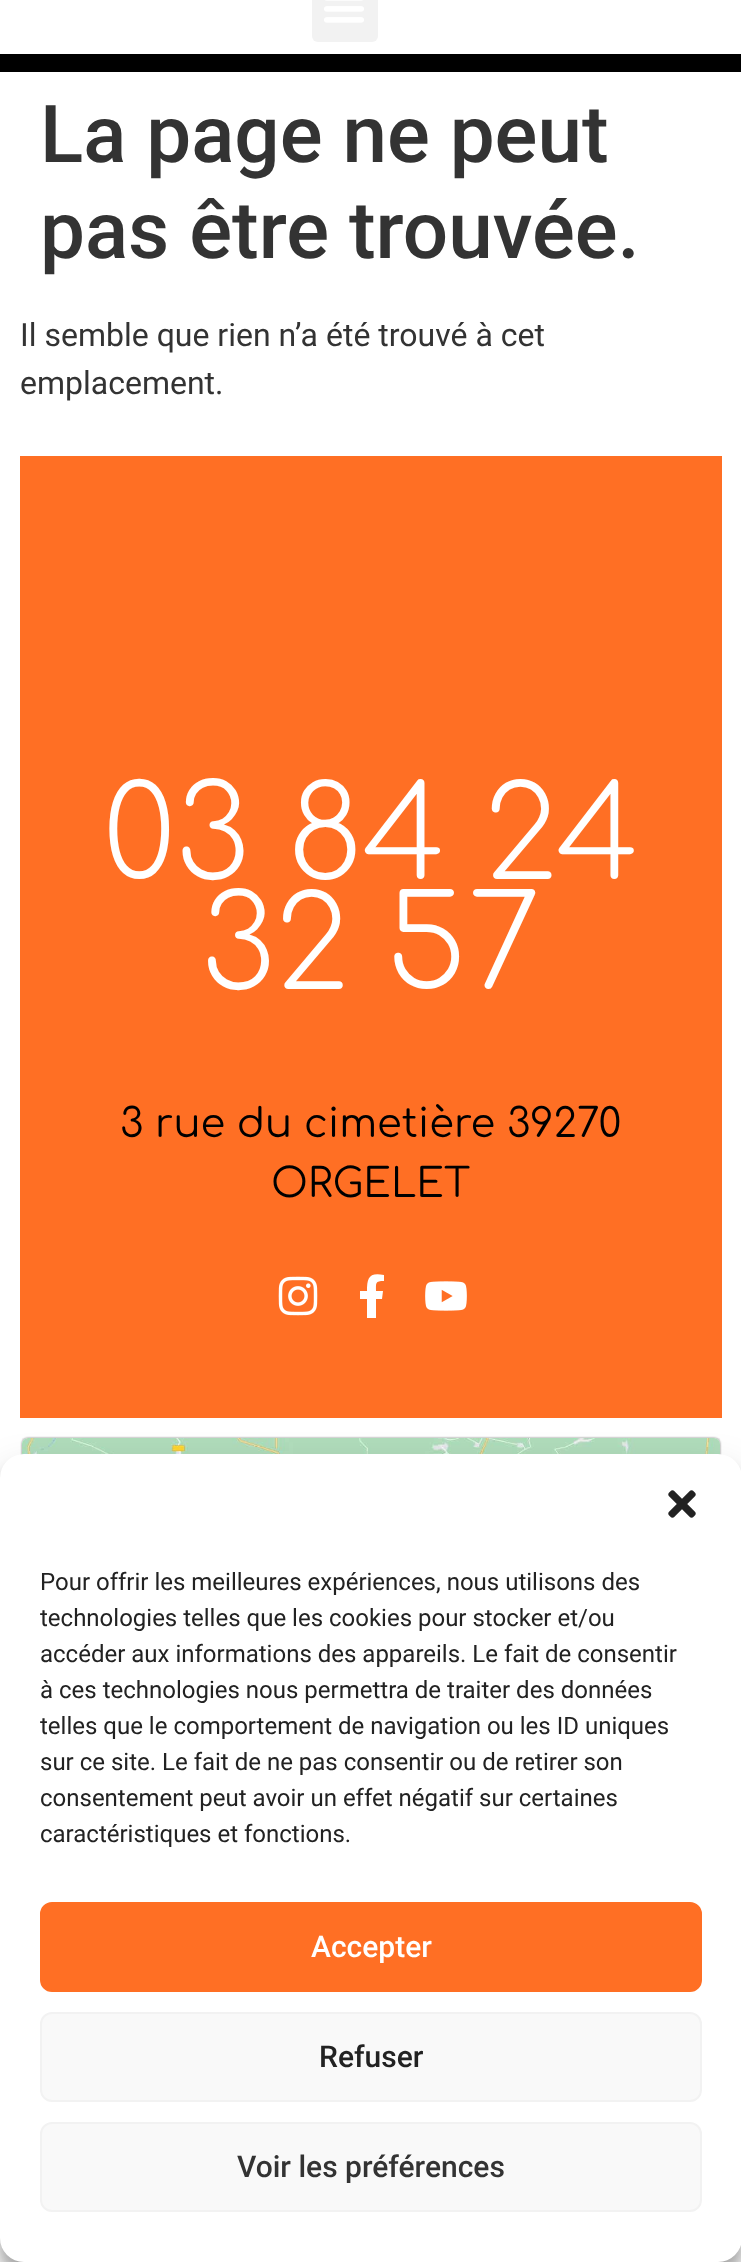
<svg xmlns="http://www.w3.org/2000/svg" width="741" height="2262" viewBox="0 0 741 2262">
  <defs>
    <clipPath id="clip1"><path d="M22 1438h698v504H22z"/></clipPath>
    <clipPath id="clip2"><path d="M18 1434H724V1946H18ZM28 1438H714C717.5 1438 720 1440.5 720 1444V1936C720 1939.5 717.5 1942 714 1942H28C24.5 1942 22 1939.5 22 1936V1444C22 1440.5 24.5 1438 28 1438Z" clip-rule="evenodd"/></clipPath>
  </defs>
  <rect width="100%" height="100%" fill="#fff"/>
  <path d="M0 54h741v18H0z" fill="#000"/>
  <rect x="312" y="-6" width="66" height="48" rx="6" fill="#f2f2f2"/>
  <image x="324" y="0" width="40" height="23" href="img/1.png"/>
  <path d="M20 456h702v962H20z" fill="#ff6f24"/>
  <image x="278" y="1276" width="40" height="40" href="img/2.png"/>
  <path d="M382 1299L383 1291H376C376 1283 375 1281 384 1281V1275C369 1272 367 1278 367 1291H360V1299H367V1318H376V1299Z" fill="#fff"/>
  <image x="425" y="1281" width="42" height="30" href="img/3.png"/>
  <g clip-path="url(#clip1)">
    <rect x="22" y="1440" width="698" height="504" rx="6" fill="#00000026" filter="blur(10px)"/>
  </g>
  <g clip-path="url(#clip2)">
    <rect x="22" y="1438" width="698" height="504" rx="6" fill="#00000080" filter="blur(1px)"/>
  </g>
  <image x="22" y="1438" width="698" height="17" href="img/4.png"/>
  <rect y="1466" width="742" height="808" rx="24" fill="#0000003b" filter="blur(6px)"/>
  <rect y="1474" width="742" height="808" rx="24" fill="#00000030" filter="blur(20px)"/>
  <rect y="1454" width="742" height="808" rx="24" fill="#fff"/>
  <image x="668" y="1490" width="28" height="28" href="img/5.png"/>
  <rect x="41" y="1903" width="660" height="88" rx="11" fill="#ff6f24" stroke="#ff6f24" stroke-width="2"/>
  <rect x="41" y="2013" width="660" height="88" rx="11" fill="#f9f9f9" stroke="#f2f2f2" stroke-width="2"/>
  <rect x="41" y="2123" width="660" height="88" rx="11" fill="#f9f9f9" stroke="#f2f2f2" stroke-width="2"/>
  <g font-family="Roboto" font-size="80" font-weight="500" fill="#333">
    <text x="40" y="162">La page ne peut</text>
    <text x="40" y="258">pas être trouvée.</text>
  </g>
  <g font-family="Roboto" font-size="32" fill="#333">
    <text x="20" y="346">Il semble que rien n’a été trouvé à cet</text>
    <text x="20" y="394">emplacement.</text>
  </g>
  <g font-family="Comfortaa" font-size="128" font-weight="300" fill="#fff">
    <text x="103" y="879">03 84 24</text>
    <text x="201" y="989">32 57</text>
  </g>
  <g font-family="Comfortaa" font-size="40" fill="#000">
    <text x="120" y="1137">3 rue du cimetière 39270</text>
    <text x="271" y="1197">ORGELET</text>
  </g>
  <g font-family="Roboto" font-size="24" fill="#222">
    <text x="40" y="1590">Pour offrir les meilleures expériences, nous utilisons des</text>
    <text x="40" y="1626">technologies telles que les cookies pour stocker et/ou</text>
    <text x="40" y="1662">accéder aux informations des appareils. Le fait de consentir</text>
    <text x="40" y="1698">à ces technologies nous permettra de traiter des données</text>
    <text x="40" y="1734">telles que le comportement de navigation ou les ID uniques</text>
    <text x="40" y="1770">sur ce site. Le fait de ne pas consentir ou de retirer son</text>
    <text x="40" y="1806">consentement peut avoir un effet négatif sur certaines</text>
    <text x="40" y="1842">caractéristiques et fonctions.</text>
  </g>
  <text x="311" y="1957" font-family="Roboto" font-size="30" font-weight="500" fill="#fff">Accepter</text>
  <text x="319" y="2067" font-family="Roboto" font-size="30" font-weight="500" fill="#222">Refuser</text>
  <text x="237" y="2177" font-family="Roboto" font-size="30" font-weight="500" fill="#333">Voir les préférences</text>
</svg>
